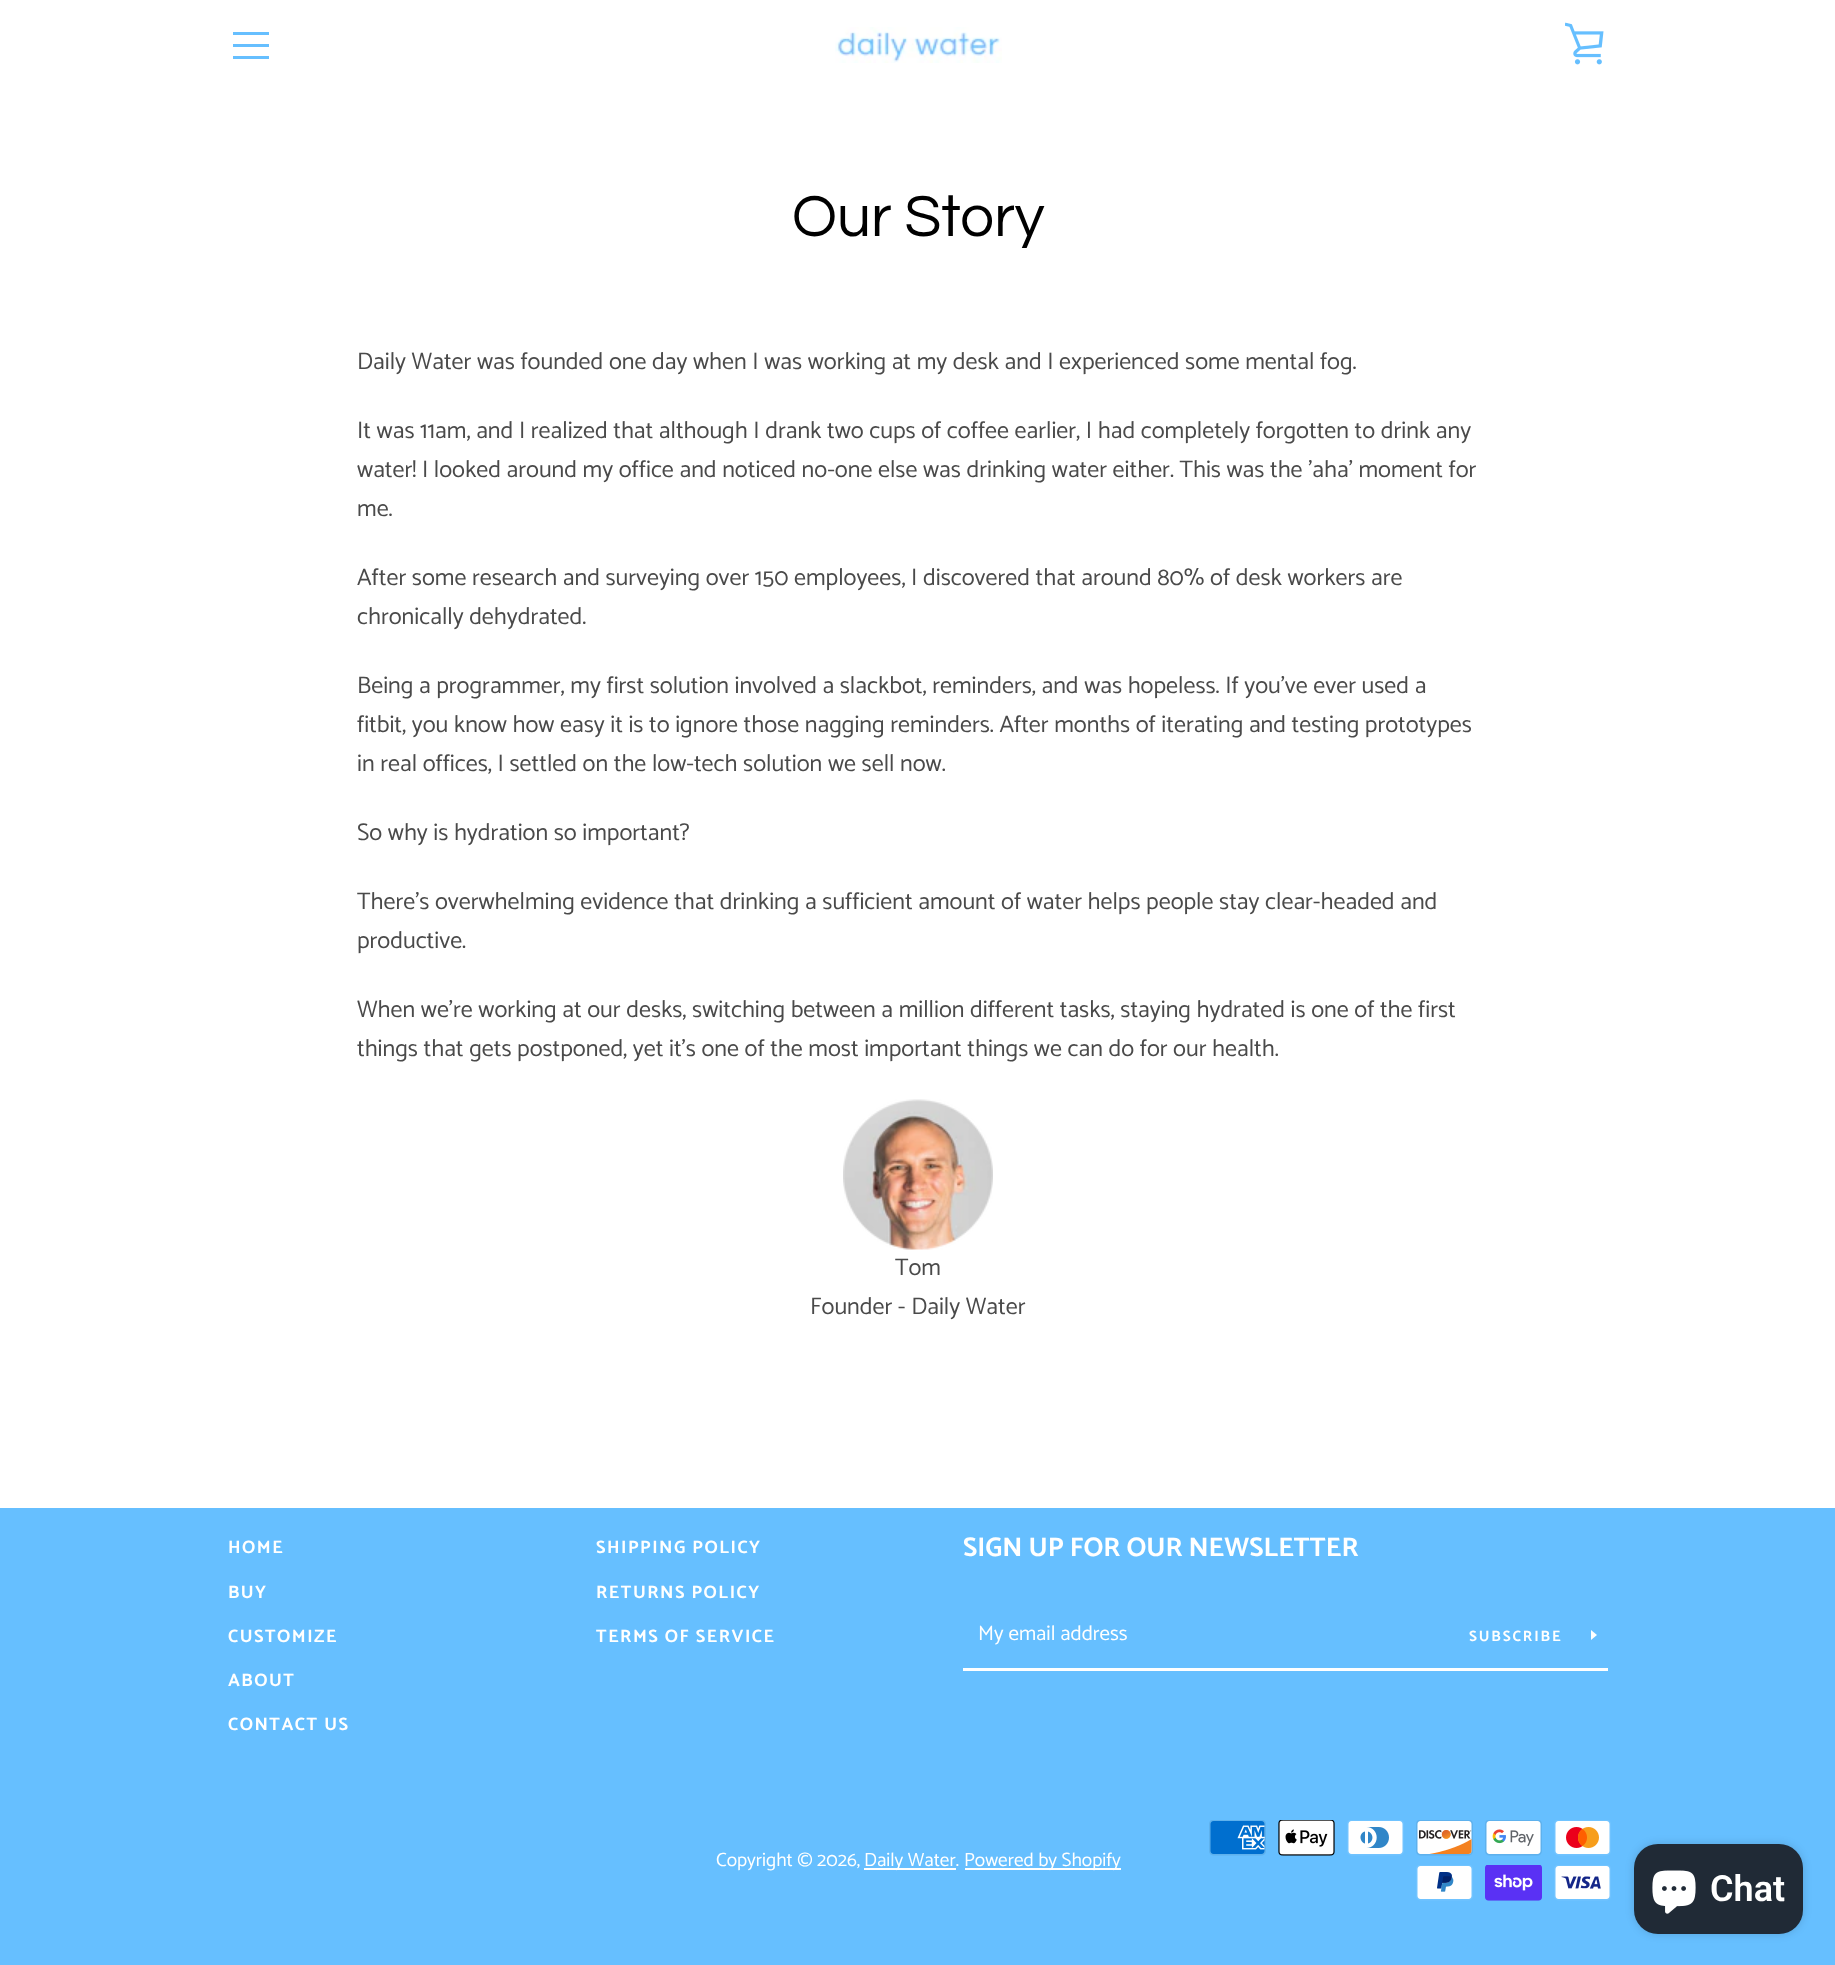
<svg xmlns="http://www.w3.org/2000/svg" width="1835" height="1965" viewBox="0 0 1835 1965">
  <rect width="100%" height="100%" fill="#fff"/>
  <path d="M233 32h36v3H233z" fill="#66bfff"/>
  <path d="M233 44h36v3H233z" fill="#66bfff"/>
  <path d="M233 56h36v3H233z" fill="#66bfff"/>
  <image x="835" y="27" width="167" height="36" href="img/1.png"/>
  <image x="1565" y="22" width="39" height="43" href="img/2.png"/>
  <image x="843" y="1099" width="150" height="151" href="img/3.png"/>
  <path d="M0 1508h1835v457H0z" fill="#66bfff"/>
  <path d="M963 1668h645v3H963z" fill="#fff"/>
  <path d="M1597 1635L1591 1640V1630Z" fill="#fff"/>
  <path d="M864 1868h92v2H864z" fill="#fff"/>
  <path d="M965 1868h156v2H965z" fill="#fff"/>
  <image x="1209" y="1820" width="57" height="36" href="img/4.png"/>
  <image x="1278" y="1820" width="57" height="36" href="img/5.png"/>
  <image x="1347" y="1820" width="57" height="36" href="img/6.png"/>
  <image x="1416" y="1820" width="57" height="36" href="img/7.png"/>
  <image x="1485" y="1820" width="57" height="36" href="img/8.png"/>
  <image x="1554" y="1820" width="57" height="36" href="img/9.png"/>
  <image x="1416" y="1865" width="57" height="36" href="img/10.png"/>
  <image x="1485" y="1865" width="57" height="36" href="img/11.png"/>
  <image x="1554" y="1865" width="57" height="36" href="img/12.png"/>
  <rect x="1634" y="1844" width="169" height="90" rx="24" fill="#00000026" filter="blur(4px)"/>
  <rect x="1634" y="1844" width="169" height="90" rx="24" fill="#202a36"/>
  <image x="1652" y="1870" width="44" height="44" href="img/13.png"/>
  <text x="792" y="236" font-family="Questrial" font-size="60" fill="#000">Our Story</text>
  <g font-family="Catamaran" font-size="24" fill="#4a4a4a">
    <text x="357" y="369">Daily Water was founded one day when I was working at my desk and I experienced some mental fog.</text>
    <text x="357" y="438">It was 11am, and I realized that although I drank two cups of coffee earlier, I had completely forgotten to drink any</text>
    <text x="357" y="477">water! I looked around my office and noticed no-one else was drinking water either. This was the 'aha' moment for</text>
    <text x="357" y="516">me.</text>
    <text x="357" y="585">After some research and surveying over 150 employees, I discovered that around 80% of desk workers are</text>
    <text x="357" y="624">chronically dehydrated.</text>
    <text x="357" y="693">Being a programmer, my first solution involved a slackbot, reminders, and was hopeless. If you’ve ever used a</text>
    <text x="357" y="732">fitbit, you know how easy it is to ignore those nagging reminders. After months of iterating and testing prototypes</text>
    <text x="357" y="771">in real offices, I settled on the low-tech solution we sell now.</text>
    <text x="357" y="840">So why is hydration so important?</text>
    <text x="357" y="909">There’s overwhelming evidence that drinking a sufficient amount of water helps people stay clear-headed and</text>
    <text x="357" y="948">productive.</text>
    <text x="357" y="1017">When we're working at our desks, switching between a million different tasks, staying hydrated is one of the first</text>
    <text x="357" y="1056">things that gets postponed, yet it’s one of the most important things we can do for our health.</text>
    <text x="895" y="1275">Tom</text>
    <text x="810" y="1314">Founder - Daily Water</text>
  </g>
  <g font-family="Catamaran" font-size="18" font-weight="bold" letter-spacing="1.5" fill="#fff">
    <text x="228" y="1553">HOME</text>
    <text x="228" y="1598">BUY</text>
    <text x="228" y="1642">CUSTOMIZE</text>
    <text x="228" y="1686">ABOUT</text>
    <text x="228" y="1730">CONTACT US</text>
    <text x="596" y="1553">SHIPPING POLICY</text>
    <text x="596" y="1598">RETURNS POLICY</text>
    <text x="596" y="1642">TERMS OF SERVICE</text>
  </g>
  <text x="963" y="1556" font-family="Catamaran" font-size="27" font-weight="bold" fill="#fff">SIGN UP FOR OUR NEWSLETTER</text>
  <text x="978" y="1640" font-family="Catamaran" font-size="21" fill="#fff">My email address</text>
  <text x="1469" y="1641" font-family="Catamaran" font-size="15" font-weight="bold" letter-spacing="1.9" fill="#fff">SUBSCRIBE</text>
  <g font-family="Catamaran" font-size="19.25" fill="#fff">
    <text x="716" y="1866">Copyright © 2026,</text>
    <text x="864" y="1866">Daily Water.</text>
    <text x="964" y="1866">Powered by Shopify</text>
  </g>
  <text x="1710" y="1901" font-family="Roboto" font-size="36" font-weight="600" fill="#fff">Chat</text>
</svg>
